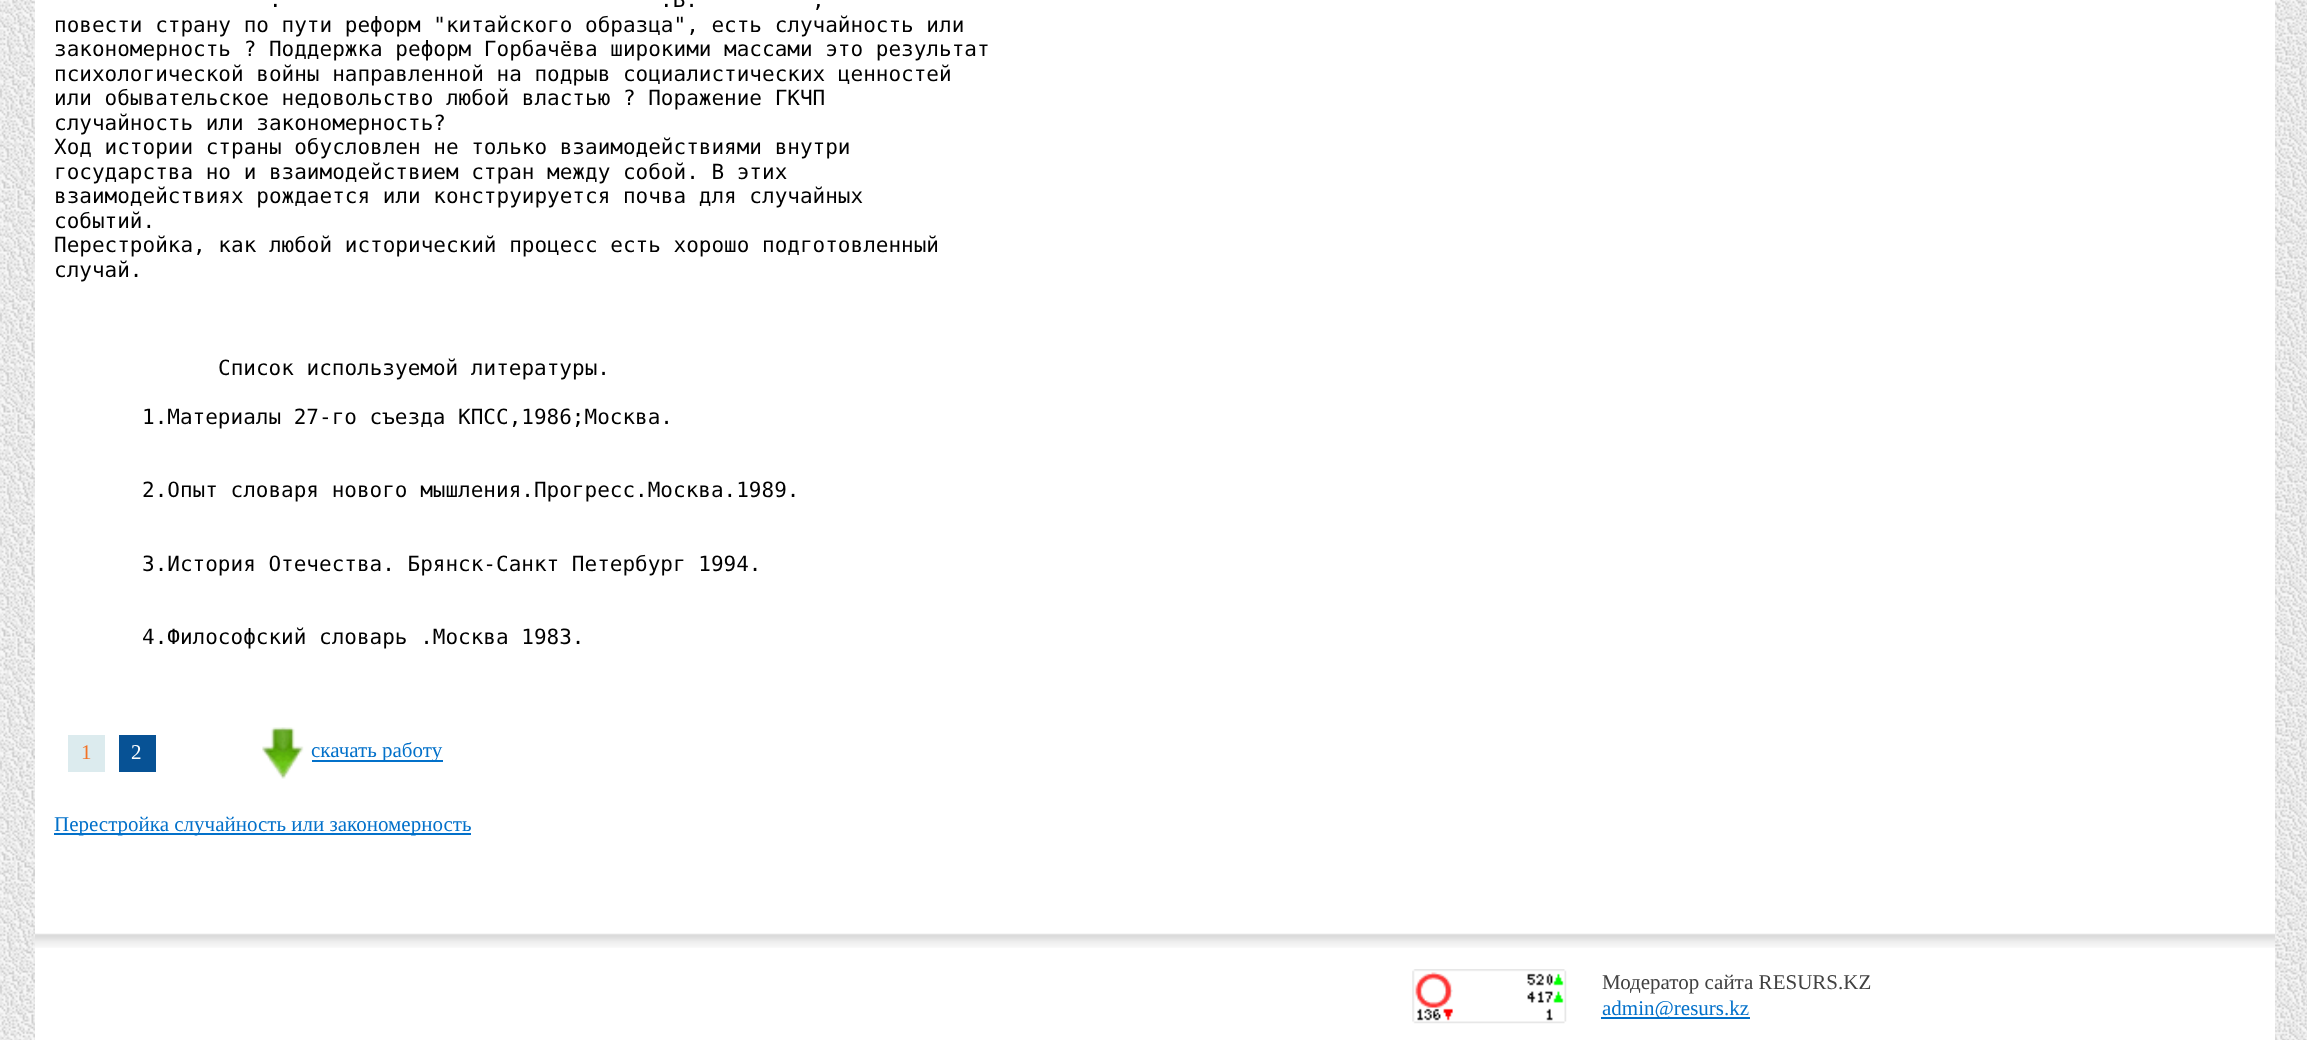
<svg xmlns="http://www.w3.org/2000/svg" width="2307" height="1040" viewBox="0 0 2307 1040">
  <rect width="100%" height="100%" fill="#fff"/>
  <image x="0" y="0" width="2307" height="1040" href="img/1.png"/>
  <path d="M35 0h2240v1040H35z" fill="#fff"/>
  <path d="M68 735h37v37H68z" fill="#dcebee"/>
  <path d="M119 735h37v37H119z" fill="#075295"/>
  <image x="262" y="727" width="42" height="52" href="img/2.png"/>
  <path d="M312 760h131v2H312z" fill="#0371ca"/>
  <path d="M54 833h417v2H54z" fill="#0371ca"/>
  <image x="35" y="933" width="2240" height="15" href="img/3.png"/>
  <image x="1412" y="969" width="155" height="55" href="img/4.png"/>
  <path d="M1601 1017h149v2H1601z" fill="#0371ca"/>
  <g font-family="DejaVu Sans Mono" font-size="21" fill="#000">
    <text x="269" y="7">.</text>
    <text x="660" y="7">.В.</text>
    <text x="812" y="7">,</text>
    <text x="54" y="32">повести страну по пути реформ "китайского образца", есть случайность или</text>
    <text x="54" y="56">закономерность ? Поддержка реформ Горбачёва широкими массами это результат</text>
    <text x="54" y="81">психологической войны направленной на подрыв социалистических ценностей</text>
    <text x="54" y="105">или обывательское недовольство любой властью ? Поражение ГКЧП</text>
    <text x="54" y="130">случайность или закономерность?</text>
    <text x="54" y="154">Ход истории страны обусловлен не только взаимодействиями внутри</text>
    <text x="54" y="179">государства но и взаимодействием стран между собой. В этих</text>
    <text x="54" y="203">взаимодействиях рождается или конструируется почва для случайных</text>
    <text x="54" y="228">событий.</text>
    <text x="54" y="252">Перестройка, как любой исторический процесс есть хорошо подготовленный</text>
    <text x="54" y="277">случай.</text>
    <text x="218" y="375">Список используемой литературы.</text>
    <text x="142" y="424">1.Mатериалы 27-го съезда КПСС,1986;Москва.</text>
    <text x="142" y="497">2.Опыт словаря нового мышления.Прогресс.Москва.1989.</text>
    <text x="142" y="571">3.История Отечества. Брянск-Санкт Петербург 1994.</text>
    <text x="142" y="644">4.Философский словарь .Москва 1983.</text>
  </g>
  <text x="81" y="759" font-family="Liberation Serif" font-size="21" fill="#f27326">1</text>
  <text x="131" y="759" font-family="Liberation Serif" font-size="21" fill="#fff">2</text>
  <g font-family="Liberation Serif" font-size="21" fill="#0371ca">
    <text x="311" y="757">скачать работу</text>
    <text x="54" y="831">Перестройка случайность или закономерность</text>
  </g>
  <text x="1602" y="989" font-family="Liberation Serif" font-size="21" fill="#414141">Модератор сайта RESURS.KZ</text>
  <text x="1602" y="1015" font-family="Liberation Serif" font-size="21" fill="#0371ca">admin@resurs.kz</text>
</svg>
